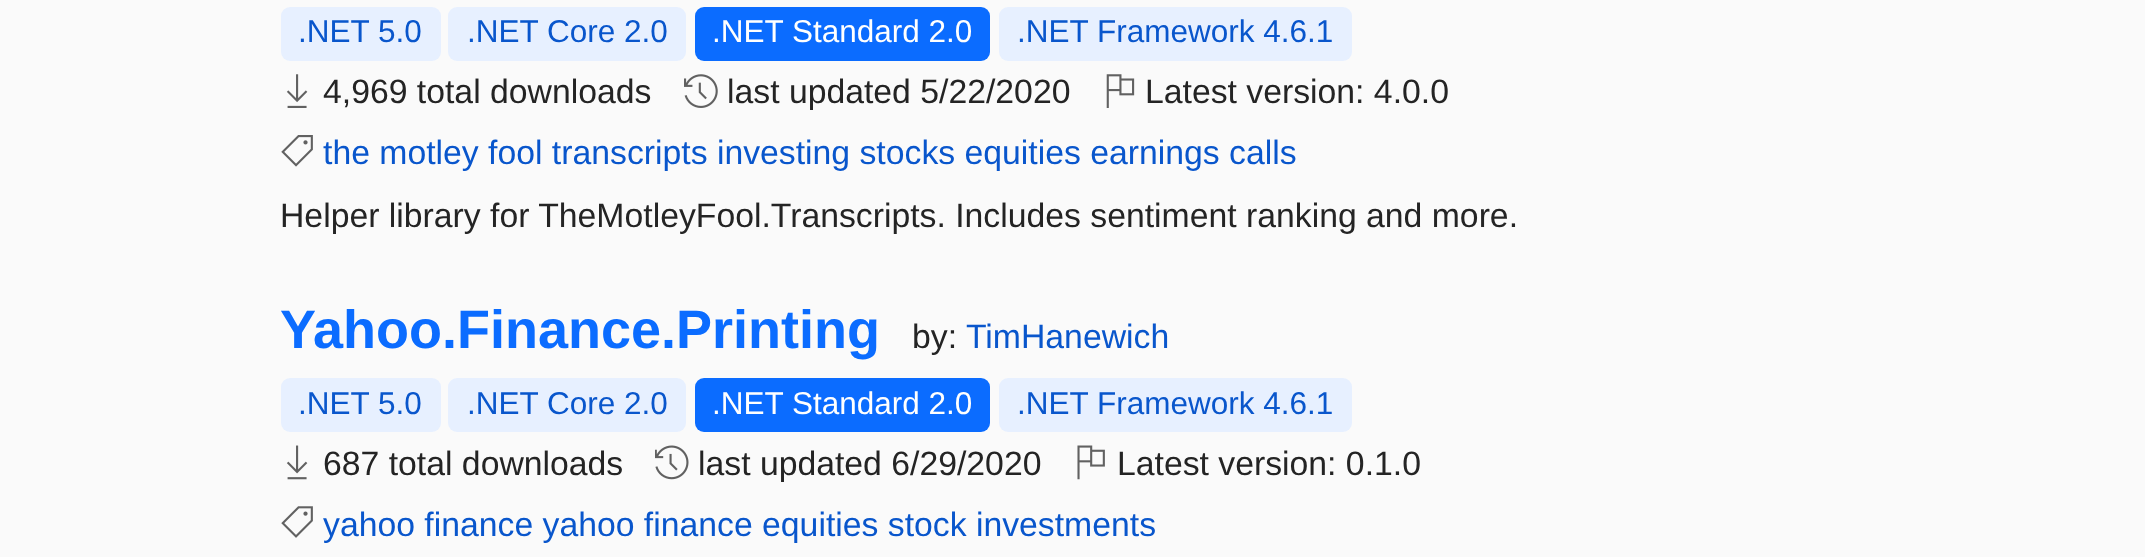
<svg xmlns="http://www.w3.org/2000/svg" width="2145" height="557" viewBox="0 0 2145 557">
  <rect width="100%" height="100%" fill="#fafafa"/>
  <rect x="281" y="7" width="160" height="54" rx="9" fill="#e7f0ff"/>
  <rect x="448" y="7" width="238" height="54" rx="9" fill="#e7f0ff"/>
  <rect x="695" y="7" width="295" height="54" rx="9" fill="#0b6cff"/>
  <rect x="999" y="7" width="353" height="54" rx="9" fill="#e7f0ff"/>
  <image x="286" y="74" width="22" height="34" href="img/1.png"/>
  <image x="684" y="74" width="34" height="34" href="img/2.png"/>
  <image x="1106" y="74" width="29" height="34" href="img/3.png"/>
  <image x="281" y="135" width="32" height="32" href="img/4.png"/>
  <rect x="281" y="378" width="160" height="54" rx="9" fill="#e7f0ff"/>
  <rect x="448" y="378" width="238" height="54" rx="9" fill="#e7f0ff"/>
  <rect x="695" y="378" width="295" height="54" rx="9" fill="#0b6cff"/>
  <rect x="999" y="378" width="353" height="54" rx="9" fill="#e7f0ff"/>
  <image x="286" y="445" width="22" height="35" href="img/5.png"/>
  <image x="655" y="445" width="34" height="35" href="img/6.png"/>
  <image x="1077" y="445" width="28" height="35" href="img/7.png"/>
  <image x="281" y="506" width="32" height="32" href="img/8.png"/>
  <g font-family="Liberation Sans" font-size="31.5" fill="#0956cc">
    <text x="298" y="42">.NET 5.0</text>
    <text x="467" y="42">.NET Core 2.0</text>
  </g>
  <text x="712" y="42" font-family="Liberation Sans" font-size="31.5" fill="#fff">.NET Standard 2.0</text>
  <text x="1017" y="42" font-family="Liberation Sans" font-size="31.5" fill="#0956cc">.NET Framework 4.6.1</text>
  <g font-family="Liberation Sans" font-size="33.75" fill="#242424">
    <text x="323" y="103">4,969 total downloads</text>
    <text x="727" y="103">last updated 5/22/2020</text>
    <text x="1145" y="103">Latest version: 4.0.0</text>
  </g>
  <text x="323" y="164" font-family="Liberation Sans" font-size="33.75" fill="#0956cc">the motley fool transcripts investing stocks equities earnings calls</text>
  <text x="280" y="227" font-family="Liberation Sans" font-size="33.75" fill="#242424">Helper library for TheMotleyFool.Transcripts. Includes sentiment ranking and more.</text>
  <text x="280" y="348" font-family="Liberation Sans" font-size="54" font-weight="bold" fill="#0b6cff">Yahoo.Finance.Printing</text>
  <text x="912" y="348" font-family="Liberation Sans" font-size="33.75" fill="#242424">by:</text>
  <text x="966" y="348" font-family="Liberation Sans" font-size="33.75" fill="#0956cc">TimHanewich</text>
  <g font-family="Liberation Sans" font-size="31.5" fill="#0956cc">
    <text x="298" y="414">.NET 5.0</text>
    <text x="467" y="414">.NET Core 2.0</text>
  </g>
  <text x="712" y="414" font-family="Liberation Sans" font-size="31.5" fill="#fff">.NET Standard 2.0</text>
  <text x="1017" y="414" font-family="Liberation Sans" font-size="31.5" fill="#0956cc">.NET Framework 4.6.1</text>
  <g font-family="Liberation Sans" font-size="33.75" fill="#242424">
    <text x="323" y="475">687 total downloads</text>
    <text x="698" y="475">last updated 6/29/2020</text>
    <text x="1117" y="475">Latest version: 0.1.0</text>
  </g>
  <text x="323" y="536" font-family="Liberation Sans" font-size="33.75" fill="#0956cc">yahoo finance yahoo finance equities stock investments</text>
</svg>
